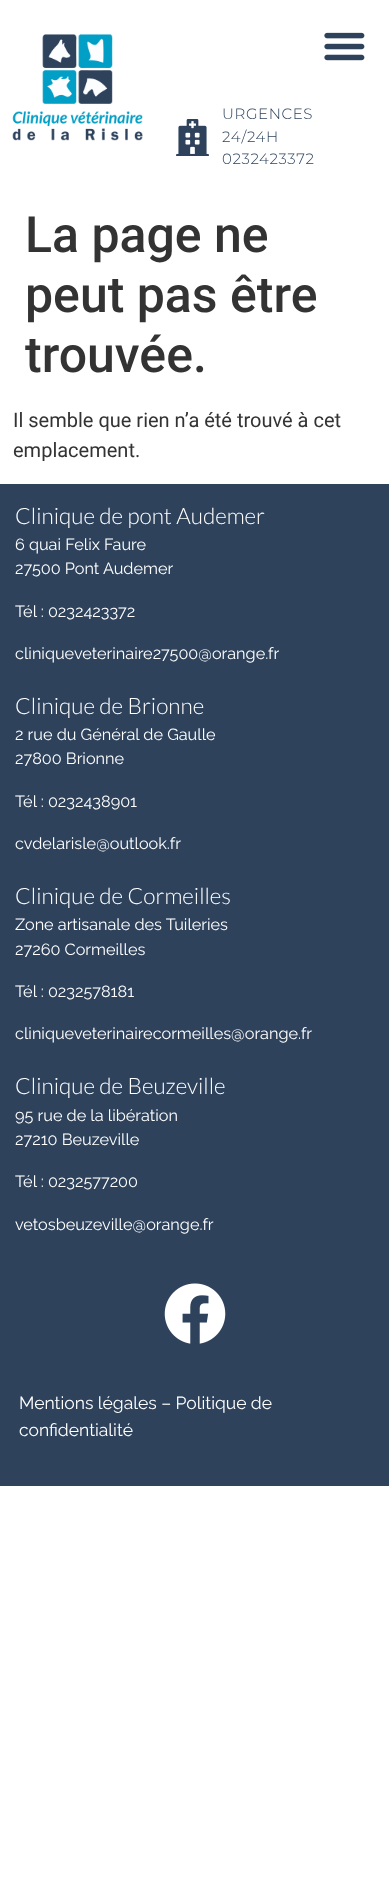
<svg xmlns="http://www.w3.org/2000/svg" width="389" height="1900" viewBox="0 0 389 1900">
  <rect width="100%" height="100%" fill="#fff"/>
  <image x="12" y="34" width="131" height="107" href="img/1.png"/>
  <image x="324" y="32" width="41" height="29" href="img/2.png"/>
  <image x="176" y="119" width="33" height="37" href="img/3.png"/>
  <path d="M0 484h389v1002H0z" fill="#2e425c"/>
  <image x="164" y="1283" width="62" height="61" href="img/4.png"/>
  <g font-family="Montserrat" font-size="15" font-weight="300" letter-spacing="0.6" fill="#2e425c">
    <text x="222" y="119">URGENCES</text>
    <text x="222" y="142">24/24H</text>
    <text x="222" y="164">0232423372</text>
  </g>
  <g font-family="Roboto" font-size="50" font-weight="500" fill="#333">
    <text x="25" y="252">La page ne</text>
    <text x="25" y="312">peut pas être</text>
    <text x="25" y="372">trouvée.</text>
  </g>
  <g font-family="Roboto" font-size="20" fill="#333">
    <text x="13" y="427">Il semble que rien n’a été trouvé à cet</text>
    <text x="13" y="457">emplacement.</text>
  </g>
  <text x="15" y="524" font-family="Lato" font-size="22.5" font-weight="300" fill="#fff">Clinique de pont Audemer</text>
  <g font-family="Raleway" font-size="16.25" fill="#fff">
    <text x="15" y="550">6 quai Felix Faure</text>
    <text x="15" y="574">27500 Pont Audemer</text>
    <text x="15" y="617">Tél : 0232423372</text>
    <text x="15" y="659">cliniqueveterinaire27500@orange.fr</text>
  </g>
  <text x="15" y="714" font-family="Lato" font-size="22.5" font-weight="300" fill="#fff">Clinique de Brionne</text>
  <g font-family="Raleway" font-size="16.25" fill="#fff">
    <text x="15" y="740">2 rue du Général de Gaulle</text>
    <text x="15" y="764">27800 Brionne</text>
    <text x="15" y="807">Tél : 0232438901</text>
    <text x="15" y="849">cvdelarisle@outlook.fr</text>
  </g>
  <text x="15" y="904" font-family="Lato" font-size="22.5" font-weight="300" fill="#fff">Clinique de Cormeilles</text>
  <g font-family="Raleway" font-size="16.25" fill="#fff">
    <text x="15" y="930">Zone artisanale des Tuileries</text>
    <text x="15" y="955">27260 Cormeilles</text>
    <text x="15" y="997">Tél : 0232578181</text>
    <text x="15" y="1039">cliniqueveterinairecormeilles@orange.fr</text>
  </g>
  <text x="15" y="1094" font-family="Lato" font-size="22.5" font-weight="300" fill="#fff">Clinique de Beuzeville</text>
  <g font-family="Raleway" font-size="16.25" fill="#fff">
    <text x="15" y="1121">95 rue de la libération</text>
    <text x="15" y="1145">27210 Beuzeville</text>
    <text x="15" y="1187">Tél : 0232577200</text>
    <text x="15" y="1230">vetosbeuzeville@orange.fr</text>
  </g>
  <g font-family="Raleway" font-size="17.5" fill="#fff">
    <text x="19" y="1409">Mentions légales – Politique de</text>
    <text x="19" y="1436">confidentialité</text>
  </g>
</svg>
